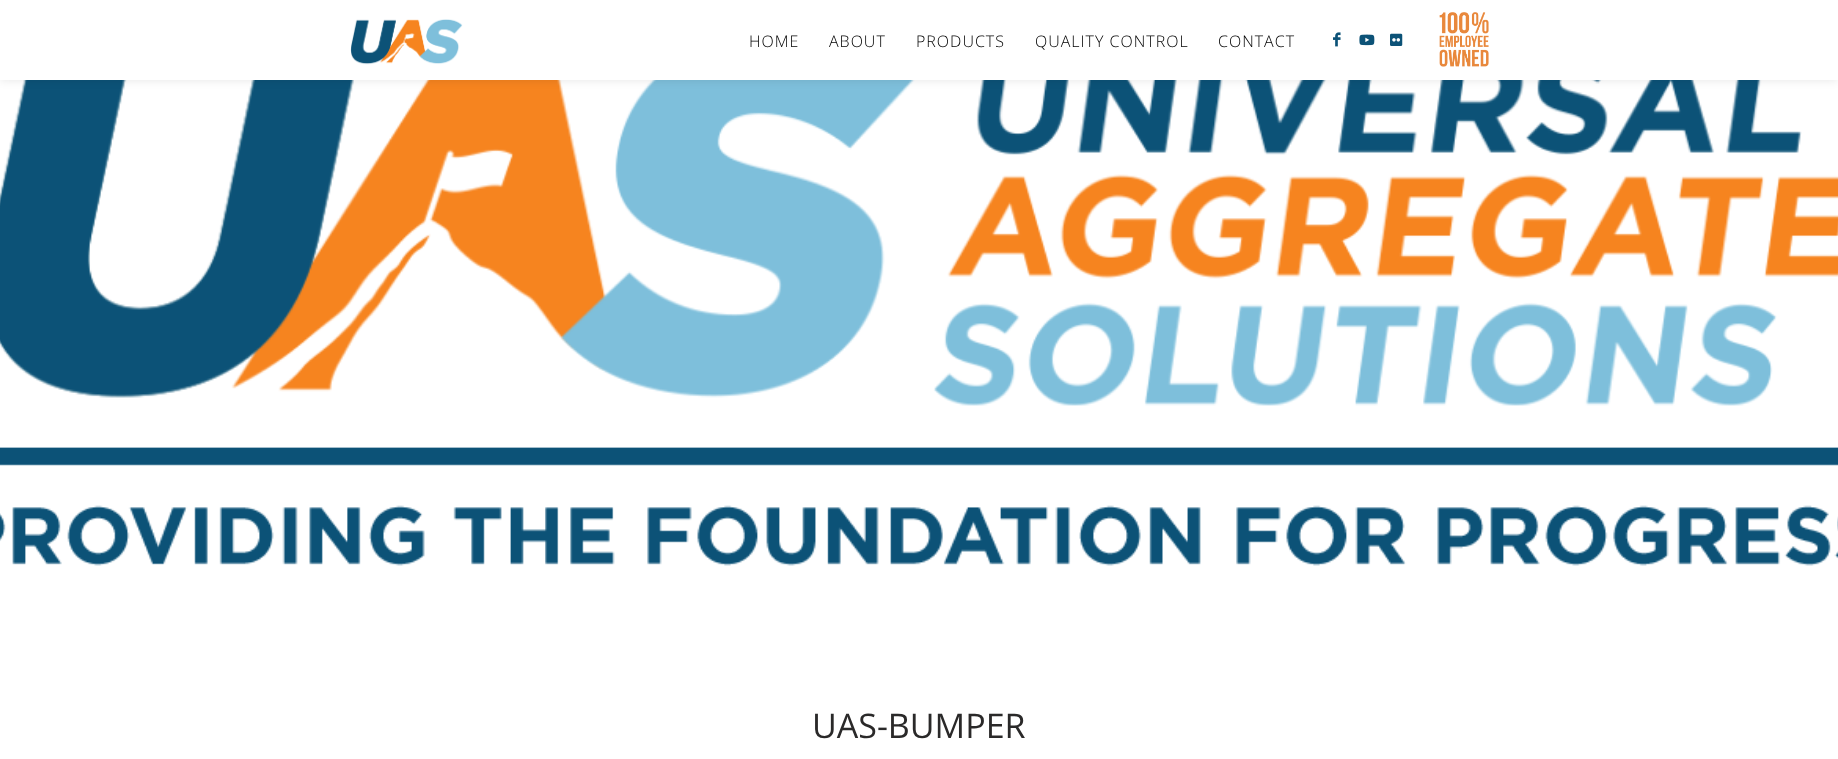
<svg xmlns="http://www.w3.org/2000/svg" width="1838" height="759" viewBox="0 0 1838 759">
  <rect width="100%" height="100%" fill="#fff"/>
  <image x="0" y="80" width="1838" height="486" href="img/6.png"/>
  <path d="M0 0h1838v80H0z" fill="#0000001a" filter="blur(5px)"/>
  <path d="M0 0h1838v80H0z" fill="#fff"/>
  <image x="350" y="19" width="113" height="46" href="img/1.png"/>
  <image x="1333" y="32" width="8" height="15" href="img/2.png"/>
  <image x="1359" y="34" width="16" height="12" href="img/3.png"/>
  <image x="1390" y="33" width="13" height="13" href="img/4.png"/>
  <image x="1439" y="12" width="50" height="55" href="img/5.png"/>
  <g font-family="Open Sans" font-size="16" font-weight="300" letter-spacing="1" fill="#000">
    <text x="749" y="47">HOME</text>
    <text x="829" y="47">ABOUT</text>
    <text x="916" y="47">PRODUCTS</text>
    <text x="1035" y="47">QUALITY CONTROL</text>
    <text x="1218" y="47">CONTACT</text>
  </g>
  <text x="812" y="738" font-family="Open Sans" font-size="34" fill="#2a2929">UAS-BUMPER</text>
</svg>
